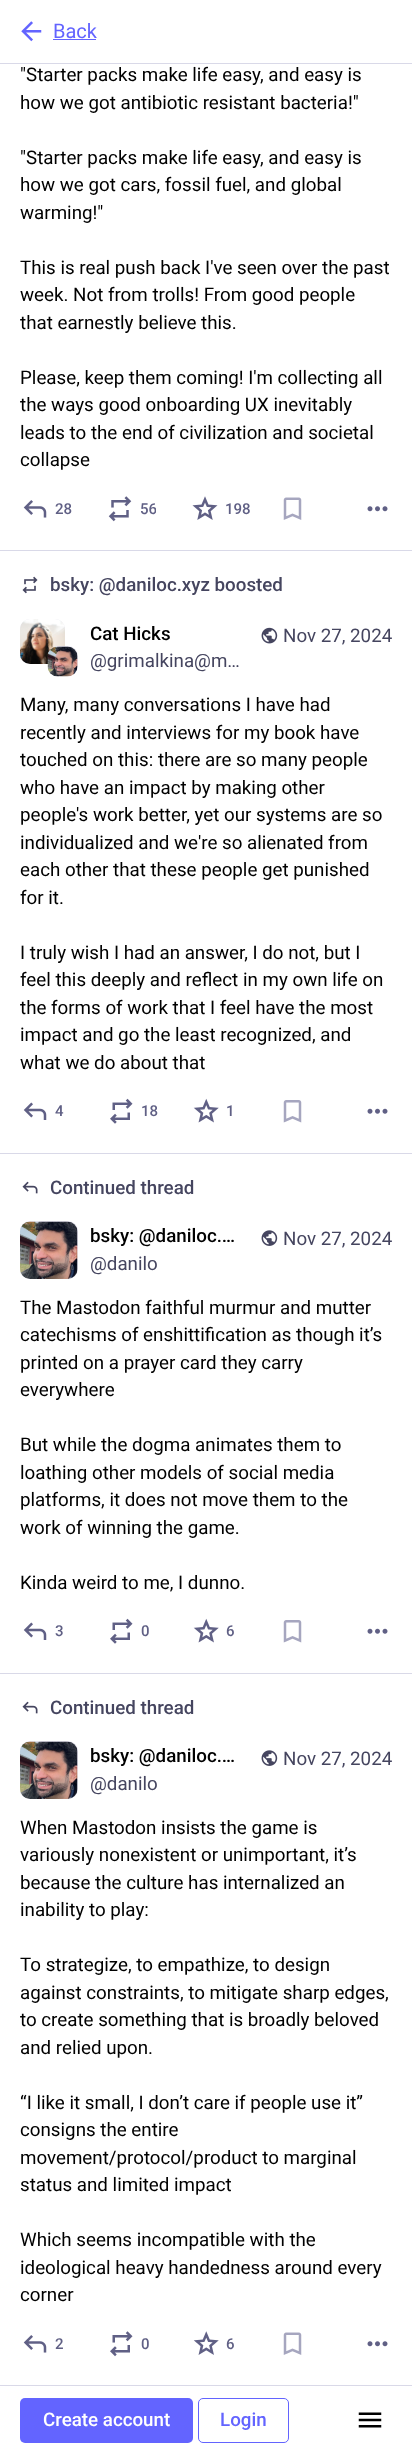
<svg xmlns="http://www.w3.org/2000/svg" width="412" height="2453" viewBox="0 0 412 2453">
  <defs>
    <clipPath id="clip1"><path d="M140 500h16v18H140z"/></clipPath>
  </defs>
  <rect width="100%" height="100%" fill="#fff"/>
  <path d="M0 63h412v1H0z" fill="#d9d9e8"/>
  <image x="21" y="21" width="21" height="21" href="img/1.png"/>
  <path d="M53 39h43v1H53z" fill="#6364ff"/>
  <path d="M0 550h412v1H0z" fill="#d9d9e8"/>
  <image x="23" y="500" width="24" height="18" href="img/2.png"/>
  <image x="108" y="496" width="24" height="26" href="img/3.png"/>
  <image x="192" y="496" width="26" height="24" href="img/4.png"/>
  <image x="283" y="497" width="19" height="23" href="img/5.png"/>
  <image x="367" y="506" width="21" height="6" href="img/6.png"/>
  <image x="22" y="576" width="16" height="18" href="img/7.png"/>
  <path d="M0 1153h412v1H0z" fill="#d9d9e8"/>
  <rect x="20" y="619" width="45" height="45" rx="10" fill="#e8e6f0"/>
  <image x="20" y="619" width="45" height="45" href="img/8.png"/>
  <rect x="48" y="646" width="30" height="30" rx="10" fill="#e8e6f0"/>
  <image x="47" y="646" width="31" height="31" href="img/9.png"/>
  <image x="261" y="627" width="17" height="17" href="img/10.png"/>
  <image x="23" y="1102" width="24" height="18" href="img/11.png"/>
  <image x="110" y="1098" width="23" height="26" href="img/12.png"/>
  <image x="193" y="1098" width="26" height="25" href="img/13.png"/>
  <image x="283" y="1100" width="19" height="23" href="img/14.png"/>
  <image x="367" y="1108" width="21" height="6" href="img/15.png"/>
  <image x="22" y="1181" width="16" height="13" href="img/16.png"/>
  <path d="M0 1673h412v1H0z" fill="#d9d9e8"/>
  <rect x="20" y="1221" width="58" height="58" rx="10" fill="#e8e6f0"/>
  <image x="20" y="1221" width="58" height="58" href="img/17.png"/>
  <image x="261" y="1230" width="17" height="16" href="img/18.png"/>
  <image x="23" y="1622" width="24" height="18" href="img/11.png"/>
  <image x="110" y="1618" width="23" height="26" href="img/12.png"/>
  <image x="193" y="1618" width="26" height="25" href="img/13.png"/>
  <image x="283" y="1620" width="19" height="23" href="img/14.png"/>
  <image x="367" y="1628" width="21" height="6" href="img/15.png"/>
  <image x="22" y="1701" width="16" height="13" href="img/16.png"/>
  <rect x="20" y="1741" width="58" height="58" rx="10" fill="#e8e6f0"/>
  <image x="20" y="1741" width="58" height="58" href="img/17.png"/>
  <image x="261" y="1750" width="17" height="16" href="img/18.png"/>
  <image x="23" y="2335" width="24" height="18" href="img/2.png"/>
  <image x="110" y="2331" width="23" height="26" href="img/19.png"/>
  <image x="193" y="2331" width="26" height="24" href="img/20.png"/>
  <image x="283" y="2332" width="19" height="23" href="img/5.png"/>
  <image x="367" y="2341" width="21" height="6" href="img/6.png"/>
  <path d="M0 2385h412v1H0z" fill="#d9d9e8"/>
  <rect x="20" y="2398" width="173" height="45" rx="5" fill="#6364ff"/>
  <rect x="198.5" y="2398.5" width="90" height="44" rx="4.5" fill="none" stroke="#6364ff"/>
  <image x="358" y="2412" width="24" height="16" href="img/21.png"/>
  <text x="53" y="38" font-family="Roboto" font-size="20" fill="#6364ff">Back</text>
  <g font-family="Roboto" font-size="18.75" fill="#000">
    <text x="20" y="81">"Starter packs make life easy, and easy is</text>
    <text x="20" y="109">how we got antibiotic resistant bacteria!"</text>
    <text x="20" y="164">"Starter packs make life easy, and easy is</text>
    <text x="20" y="191">how we got cars, fossil fuel, and global</text>
    <text x="20" y="219">warming!"</text>
    <text x="20" y="274">This is real push back I've seen over the past</text>
    <text x="20" y="301">week. Not from trolls! From good people</text>
    <text x="20" y="329">that earnestly believe this.</text>
    <text x="20" y="384">Please, keep them coming! I'm collecting all</text>
    <text x="20" y="411">the ways good onboarding UX inevitably</text>
    <text x="20" y="439">leads to the end of civilization and societal</text>
    <text x="20" y="466">collapse</text>
  </g>
  <text x="55" y="514" font-family="Roboto" font-size="15" font-weight="500" fill="#606085">28</text>
  <g clip-path="url(#clip1)">
    <text x="140" y="514" font-family="Roboto" font-size="15" font-weight="500" fill="#606085">56</text>
  </g>
  <text x="225" y="514" font-family="Roboto" font-size="15" font-weight="500" fill="#606085">198</text>
  <text x="50" y="591" font-family="Roboto" font-size="18.75" font-weight="500" fill="#45455f">bsky: @daniloc.xyz boosted</text>
  <text x="90" y="640" font-family="Roboto" font-size="18.75" font-weight="500" fill="#000">Cat Hicks</text>
  <g font-family="Roboto" font-size="18.75" fill="#45455f">
    <text x="90" y="667">@grimalkina@m…</text>
    <text x="283" y="642">Nov 27, 2024</text>
  </g>
  <g font-family="Roboto" font-size="18.75" fill="#000">
    <text x="20" y="711">Many, many conversations I have had</text>
    <text x="20" y="739">recently and interviews for my book have</text>
    <text x="20" y="766">touched on this: there are so many people</text>
    <text x="20" y="794">who have an impact by making other</text>
    <text x="20" y="821">people's work better, yet our systems are so</text>
    <text x="20" y="849">individualized and we're so alienated from</text>
    <text x="20" y="876">each other that these people get punished</text>
    <text x="20" y="904">for it.</text>
    <text x="20" y="959">I truly wish I had an answer, I do not, but I</text>
    <text x="20" y="986">feel this deeply and reflect in my own life on</text>
    <text x="20" y="1014">the forms of work that I feel have the most</text>
    <text x="20" y="1041">impact and go the least recognized, and</text>
    <text x="20" y="1069">what we do about that</text>
  </g>
  <g font-family="Roboto" font-size="15" font-weight="500" fill="#606085">
    <text x="55" y="1116">4</text>
    <text x="141" y="1116">18</text>
    <text x="226" y="1116">1</text>
  </g>
  <text x="50" y="1194" font-family="Roboto" font-size="18.75" font-weight="500" fill="#45455f">Continued thread</text>
  <text x="90" y="1242" font-family="Roboto" font-size="18.75" font-weight="500" fill="#000">bsky: @daniloc.…</text>
  <g font-family="Roboto" font-size="18.75" fill="#45455f">
    <text x="90" y="1270">@danilo</text>
    <text x="283" y="1245">Nov 27, 2024</text>
  </g>
  <g font-family="Roboto" font-size="18.75" fill="#000">
    <text x="20" y="1314">The Mastodon faithful murmur and mutter</text>
    <text x="20" y="1341">catechisms of enshittification as though it’s</text>
    <text x="20" y="1369">printed on a prayer card they carry</text>
    <text x="20" y="1396">everywhere</text>
    <text x="20" y="1451">But while the dogma animates them to</text>
    <text x="20" y="1479">loathing other models of social media</text>
    <text x="20" y="1506">platforms, it does not move them to the</text>
    <text x="20" y="1534">work of winning the game.</text>
    <text x="20" y="1589">Kinda weird to me, I dunno.</text>
  </g>
  <g font-family="Roboto" font-size="15" font-weight="500" fill="#606085">
    <text x="55" y="1636">3</text>
    <text x="141" y="1636">0</text>
    <text x="226" y="1636">6</text>
  </g>
  <text x="50" y="1714" font-family="Roboto" font-size="18.75" font-weight="500" fill="#45455f">Continued thread</text>
  <text x="90" y="1762" font-family="Roboto" font-size="18.75" font-weight="500" fill="#000">bsky: @daniloc.…</text>
  <g font-family="Roboto" font-size="18.75" fill="#45455f">
    <text x="90" y="1790">@danilo</text>
    <text x="283" y="1765">Nov 27, 2024</text>
  </g>
  <g font-family="Roboto" font-size="18.75" fill="#000">
    <text x="20" y="1834">When Mastodon insists the game is</text>
    <text x="20" y="1861">variously nonexistent or unimportant, it’s</text>
    <text x="20" y="1889">because the culture has internalized an</text>
    <text x="20" y="1916">inability to play:</text>
    <text x="20" y="1971">To strategize, to empathize, to design</text>
    <text x="20" y="1999">against constraints, to mitigate sharp edges,</text>
    <text x="20" y="2026">to create something that is broadly beloved</text>
    <text x="20" y="2054">and relied upon.</text>
    <text x="20" y="2109">“I like it small, I don’t care if people use it”</text>
    <text x="20" y="2136">consigns the entire</text>
    <text x="20" y="2164">movement/protocol/product to marginal</text>
    <text x="20" y="2191">status and limited impact</text>
    <text x="20" y="2246">Which seems incompatible with the</text>
    <text x="20" y="2274">ideological heavy handedness around every</text>
    <text x="20" y="2301">corner</text>
  </g>
  <g font-family="Roboto" font-size="15" font-weight="500" fill="#606085">
    <text x="55" y="2349">2</text>
    <text x="141" y="2349">0</text>
    <text x="226" y="2349">6</text>
  </g>
  <text x="43" y="2426" font-family="Roboto" font-size="18.75" font-weight="500" fill="#fff">Create account</text>
  <text x="220" y="2426" font-family="Roboto" font-size="18.75" font-weight="500" fill="#6364ff">Login</text>
</svg>
